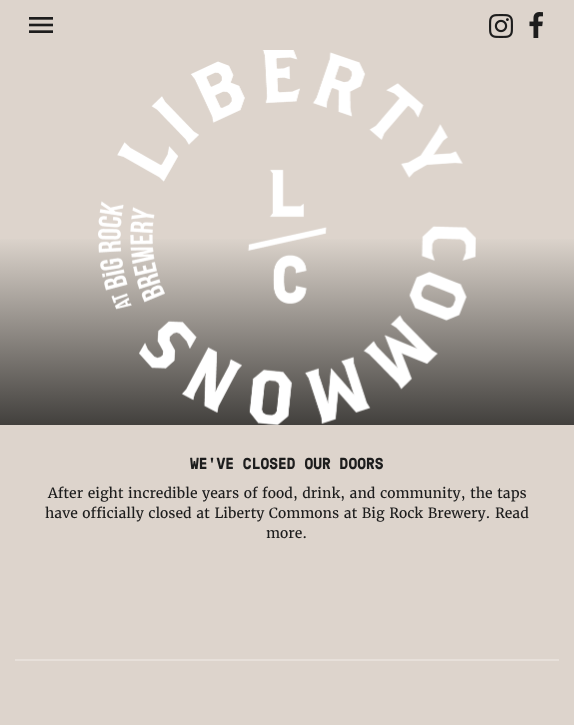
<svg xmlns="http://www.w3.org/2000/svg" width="574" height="725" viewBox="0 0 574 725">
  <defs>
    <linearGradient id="g1" gradientUnits="userSpaceOnUse" x1="287" y1="50" x2="287" y2="425"><stop offset="0" stop-color="#dcd4cc"/><stop offset="0.5" stop-color="#dcd4cc"/><stop offset="1" stop-color="#42403d"/></linearGradient>
  </defs>
  <rect width="100%" height="100%" fill="#ddd4cc"/>
  <image x="29" y="17" width="24" height="16" href="img/1.png"/>
  <image x="489" y="14" width="24" height="24" href="img/2.png"/>
  <image x="529" y="12" width="14" height="26" href="img/3.png"/>
  <path d="M0 239h574v186H0z" fill="url(#g1)"/>
  <image x="98" y="50" width="378" height="375" href="img/4.png"/>
  <path d="M15 659h544v2H15z" fill="#e7e0da"/>
  <text x="190" y="469" font-family="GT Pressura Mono" font-size="16" font-weight="bold" fill="#1d1d1d">WE'VE CLOSED OUR DOORS</text>
  <g font-family="Merriweather" font-size="14" fill="#1d1d1d">
    <text x="48" y="498">After eight incredible years of food, drink, and community, the taps</text>
    <text x="45" y="518">have officially closed at Liberty Commons at Big Rock Brewery. Read</text>
    <text x="266" y="538">more.</text>
  </g>
</svg>
